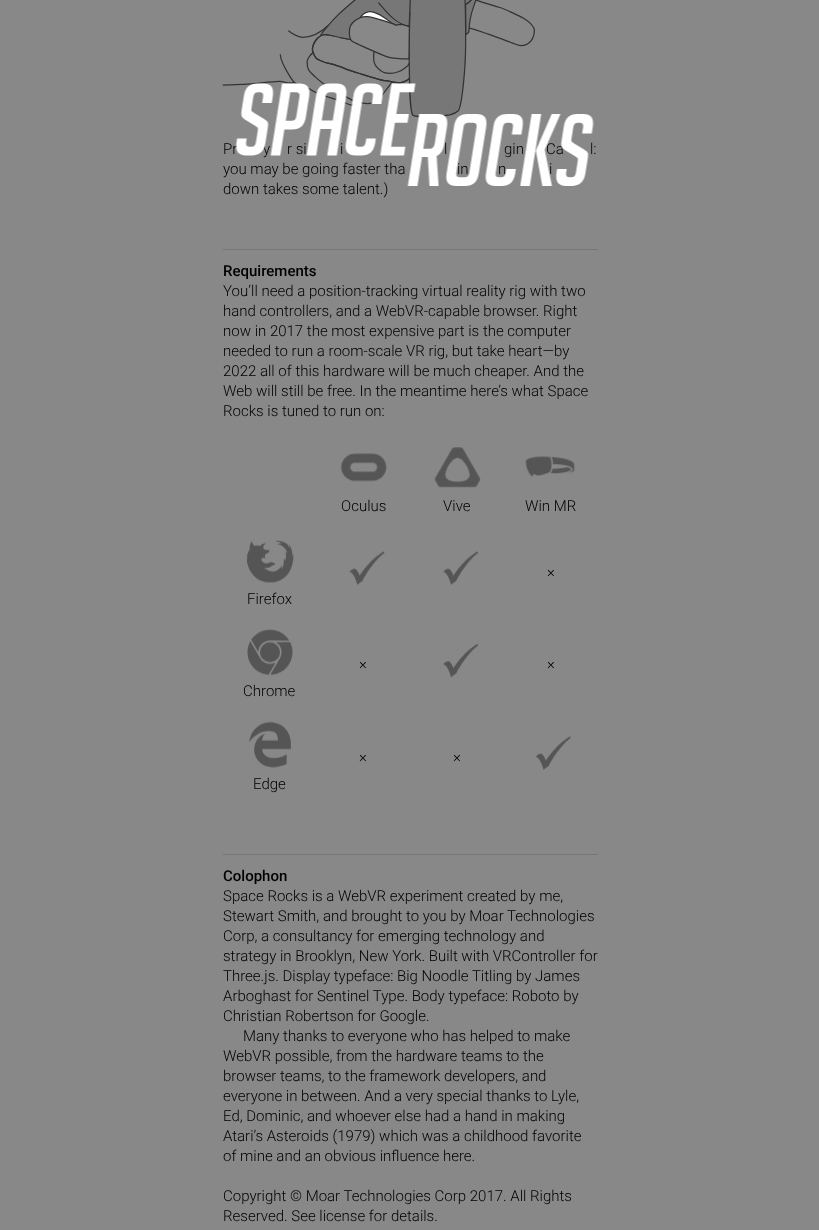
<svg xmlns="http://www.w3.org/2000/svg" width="819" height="1230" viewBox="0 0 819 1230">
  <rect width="100%" height="100%" fill="#888"/>
  <image x="222" y="0" width="313" height="118" href="img/2.png"/>
  <image x="311" y="11" width="99" height="73" href="img/3.png"/>
  <image x="329" y="12" width="81" height="48" href="img/4.png"/>
  <path d="M223 249h375v1H223z" fill="#777"/>
  <image x="340" y="453" width="47" height="29" href="img/5.png"/>
  <image x="434" y="447" width="47" height="41" href="img/6.png"/>
  <image x="525" y="456" width="50" height="21" href="img/7.png"/>
  <image x="349" y="551" width="36" height="34" href="img/8.png"/>
  <image x="443" y="551" width="35" height="34" href="img/9.png"/>
  <image x="246" y="540" width="48" height="43" href="img/10.png"/>
  <image x="443" y="644" width="35" height="34" href="img/11.png"/>
  <image x="247" y="629" width="46" height="47" href="img/12.png"/>
  <image x="536" y="736" width="35" height="34" href="img/13.png"/>
  <image x="249" y="721" width="42" height="47" href="img/14.png"/>
  <path d="M223 854h375v1H223z" fill="#777"/>
  <g font-family="Roboto" font-size="15" font-weight="300" fill="#000">
    <text x="223" y="154">Pr</text>
    <text x="263" y="154">y</text>
    <text x="287" y="154">r si</text>
    <text x="340" y="154">i</text>
    <text x="444" y="154">l</text>
    <text x="504" y="154">gin</text>
    <text x="546" y="154">Ca</text>
    <text x="590" y="154">l:</text>
    <text x="223" y="174">you may be going faster tha</text>
    <text x="457" y="174">in</text>
    <text x="498" y="174">n</text>
    <text x="549" y="174">i</text>
    <text x="223" y="194">down takes some talent.)</text>
  </g>
  <image x="235" y="83" width="359" height="103" href="img/1.png"/>
  <text x="223" y="276" font-family="Roboto" font-size="15" font-weight="500" fill="#000">Requirements</text>
  <g font-family="Roboto" font-size="15" font-weight="300" fill="#000">
    <text x="223" y="296">You’ll need a position-tracking virtual reality rig with two</text>
    <text x="223" y="316">hand controllers, and a WebVR-capable browser. Right</text>
    <text x="223" y="336">now in 2017 the most expensive part is the computer</text>
    <text x="223" y="356">needed to run a room-scale VR rig, but take heart—by</text>
    <text x="223" y="376">2022 all of this hardware will be much cheaper. And the</text>
    <text x="223" y="396">Web will still be free. In the meantime here’s what Space</text>
    <text x="223" y="416">Rocks is tuned to run on:</text>
    <text x="341" y="511">Oculus</text>
    <text x="443" y="511">Vive</text>
    <text x="525" y="511">Win MR</text>
    <text x="547" y="577">×</text>
    <text x="247" y="604">Firefox</text>
    <text x="359" y="669">×</text>
    <text x="547" y="669">×</text>
    <text x="243" y="696">Chrome</text>
    <text x="359" y="762">×</text>
    <text x="453" y="762">×</text>
    <text x="253" y="789">Edge</text>
  </g>
  <text x="223" y="881" font-family="Roboto" font-size="15" font-weight="500" fill="#000">Colophon</text>
  <g font-family="Roboto" font-size="15" font-weight="300" fill="#000">
    <text x="223" y="901">Space Rocks is a WebVR experiment created by me,</text>
    <text x="223" y="921">Stewart Smith, and brought to you by Moar Technologies</text>
    <text x="223" y="941">Corp, a consultancy for emerging technology and</text>
    <text x="223" y="961">strategy in Brooklyn, New York. Built with VRController for</text>
    <text x="223" y="981">Three.js. Display typeface: Big Noodle Titling by James</text>
    <text x="223" y="1001">Arboghast for Sentinel Type. Body typeface: Roboto by</text>
    <text x="223" y="1021">Christian Robertson for Google.</text>
    <text x="243" y="1041">Many thanks to everyone who has helped to make</text>
    <text x="223" y="1061">WebVR possible, from the hardware teams to the</text>
    <text x="223" y="1081">browser teams, to the framework developers, and</text>
    <text x="223" y="1101">everyone in between. And a very special thanks to Lyle,</text>
    <text x="223" y="1121">Ed, Dominic, and whoever else had a hand in making</text>
    <text x="223" y="1141">Atari’s Asteroids (1979) which was a childhood favorite</text>
    <text x="223" y="1161">of mine and an obvious influence here.</text>
    <text x="223" y="1201">Copyright © Moar Technologies Corp 2017. All Rights</text>
    <text x="223" y="1221">Reserved. See license for details.</text>
  </g>
</svg>
